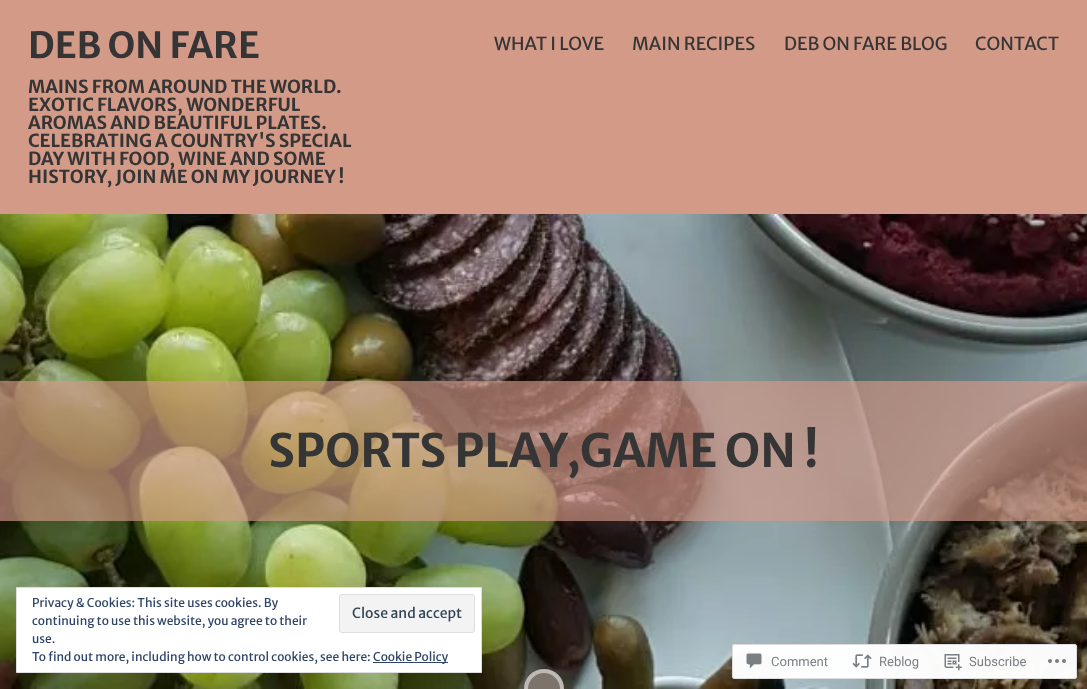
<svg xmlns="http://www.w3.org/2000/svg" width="1087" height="689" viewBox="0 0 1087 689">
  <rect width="100%" height="100%" fill="#d49a88"/>
  <image x="0" y="214" width="1087" height="475" href="img/1.png"/>
  <path d="M0 381h1087v140H0z" fill="#d49a88a6"/>
  <circle cx="544" cy="689" r="20" fill="#7c736b"/>
  <circle cx="544" cy="689" r="18" fill="none" stroke="#ffffff80" stroke-width="4"/>
  <path d="M16.5 587.5h465v85H16.5z" fill="#fff" stroke="#dedede"/>
  <rect x="339.5" y="594.5" width="135" height="38" rx="2.5" fill="#f3f3f3" stroke="#dedede"/>
  <path d="M373 662h75v1H373z" fill="#2e4467"/>
  <rect x="732" y="644" width="345" height="35" rx="3" fill="#fffffffa"/>
  <rect x="732.5" y="644.5" width="344" height="34" rx="2.5" fill="none" stroke="#dcdcdefa"/>
  <image x="746" y="653" width="16" height="16" href="img/2.png"/>
  <image x="852" y="654" width="20" height="14" href="img/3.png"/>
  <image x="944" y="654" width="18" height="17" href="img/4.png"/>
  <image x="1048" y="659" width="18" height="4" href="img/5.png"/>
  <text x="28" y="58" font-family="Merriweather Sans" font-size="36" font-weight="bold" fill="#353535">DEB ON FARE</text>
  <g font-family="Merriweather Sans" font-size="18" font-weight="bold" fill="#353535">
    <text x="28" y="93">MAINS FROM AROUND THE WORLD.</text>
    <text x="28" y="111">EXOTIC FLAVORS, WONDERFUL</text>
    <text x="28" y="129">AROMAS AND BEAUTIFUL PLATES.</text>
    <text x="28" y="147">CELEBRATING A COUNTRY'S SPECIAL</text>
    <text x="28" y="165">DAY WITH FOOD, WINE AND SOME</text>
    <text x="28" y="183">HISTORY, JOIN ME ON MY JOURNEY !</text>
  </g>
  <g font-family="Merriweather Sans" font-size="18" fill="#353535">
    <text x="494" y="50">WHAT I LOVE</text>
    <text x="632" y="50">MAIN RECIPES</text>
    <text x="784" y="50">DEB ON FARE BLOG</text>
    <text x="975" y="50">CONTACT</text>
  </g>
  <text x="268" y="467" font-family="Merriweather Sans" font-size="46" font-weight="bold" fill="#353535">SPORTS PLAY,GAME ON !</text>
  <g font-family="Merriweather Sans" font-size="12" fill="#2e4467">
    <text x="32" y="607">Privacy &amp; Cookies: This site uses cookies. By</text>
    <text x="32" y="625">continuing to use this website, you agree to their</text>
  </g>
  <text x="352" y="618" font-family="Merriweather Sans" font-size="14" fill="#2e4453">Close and accept</text>
  <g font-family="Merriweather Sans" font-size="12" fill="#2e4467">
    <text x="32" y="643">use.</text>
    <text x="32" y="661">To find out more, including how to control cookies, see here:</text>
    <text x="373" y="661">Cookie Policy</text>
  </g>
  <g font-family="Roboto" font-size="13" fill="#7b7f84">
    <text x="771" y="666">Comment</text>
    <text x="879" y="666">Reblog</text>
    <text x="969" y="666">Subscribe</text>
  </g>
</svg>
